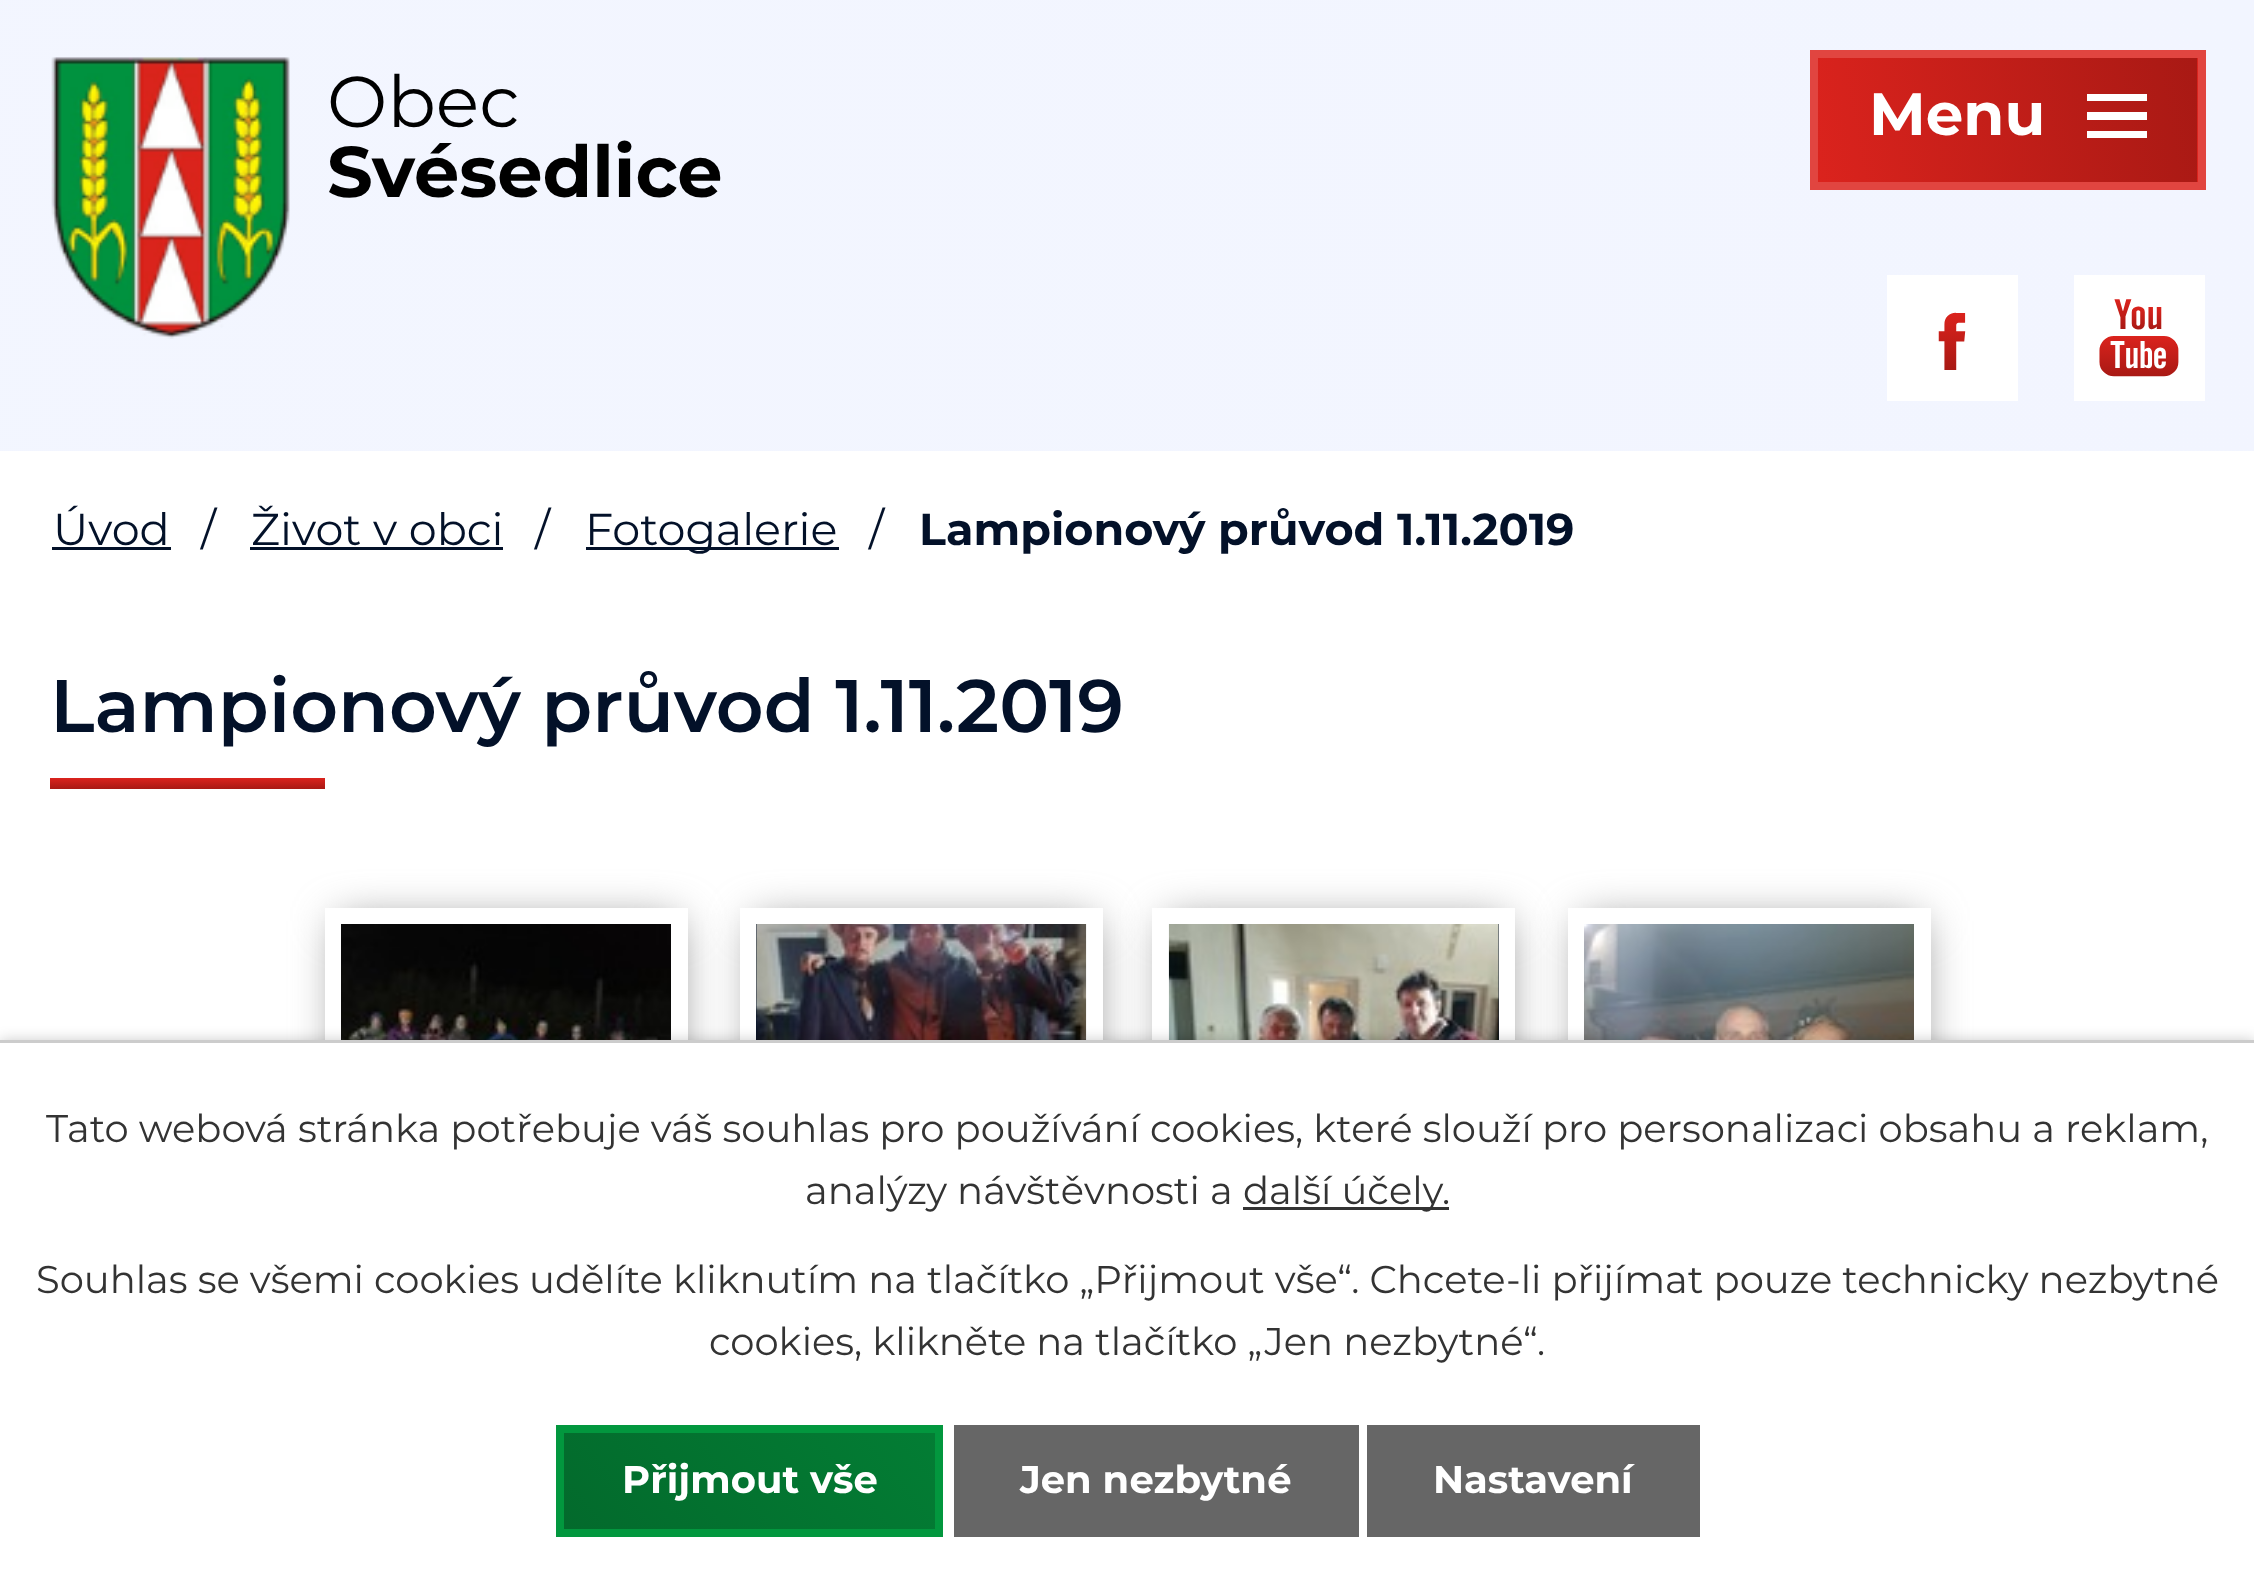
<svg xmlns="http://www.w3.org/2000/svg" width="2254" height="1589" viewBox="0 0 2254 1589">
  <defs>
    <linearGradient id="g1" gradientUnits="userSpaceOnUse" x1="-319" y1="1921" x2="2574" y2="981"><stop offset="0" stop-color="#f3f6ff"/><stop offset="1" stop-color="#f2f5ff"/></linearGradient>
    <linearGradient id="g2" gradientUnits="userSpaceOnUse" x1="1813" y1="154" x2="2202" y2="85"><stop offset="0" stop-color="#db231d"/><stop offset="1" stop-color="#a81914"/></linearGradient>
    <linearGradient id="g3" gradientUnits="userSpaceOnUse" x1="2192" y1="154" x2="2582" y2="85"><stop offset="0" stop-color="#db231d"/><stop offset="1" stop-color="#a81914"/></linearGradient>
    <linearGradient id="g4" gradientUnits="userSpaceOnUse" x1="187" y1="778" x2="187" y2="789"><stop offset="0" stop-color="#db231d"/><stop offset="1" stop-color="#a81914"/></linearGradient>
    <clipPath id="clip1"><path d="M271 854H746V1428H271ZM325 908H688V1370H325Z" clip-rule="evenodd"/></clipPath>
    <clipPath id="clip2"><path d="M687 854H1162V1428H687ZM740 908H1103V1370H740Z" clip-rule="evenodd"/></clipPath>
    <clipPath id="clip3"><path d="M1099 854H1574V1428H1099ZM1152 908H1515V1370H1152Z" clip-rule="evenodd"/></clipPath>
    <clipPath id="clip4"><path d="M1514 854H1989V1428H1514ZM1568 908H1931V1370H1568Z" clip-rule="evenodd"/></clipPath>
    <linearGradient id="g5" gradientUnits="userSpaceOnUse" x1="882" y1="1370" x2="617" y2="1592"><stop offset="0" stop-color="#037d34"/><stop offset="1" stop-color="#036a2c"/></linearGradient>
  </defs>
  <rect width="100%" height="100%" fill="#fff"/>
  <path d="M0 0h2254v451H0z" fill="url(#g1)"/>
  <image x="51" y="57" width="239" height="282" href="img/1.png"/>
  <image x="1887" y="275" width="131" height="126" href="img/2.png"/>
  <image x="2074" y="275" width="131" height="126" href="img/3.png"/>
  <path d="M1818 58h379v124H1818z" fill="url(#g2)"/>
  <path d="M2197 58h1v124H2197z" fill="url(#g3)"/>
  <path d="M1814 54h388v132H1814z" fill="none" stroke="#e14540" stroke-width="8"/>
  <path d="M2087 138V131H2147V138ZM2087 94H2147V101H2087ZM2087 120V112H2147V120Z" fill="#fff"/>
  <path d="M52 547h119v3H52z" fill="#031129"/>
  <path d="M250 547h253v3H250z" fill="#031129"/>
  <path d="M586 547h253v3H586z" fill="#031129"/>
  <path d="M50 778h275v11H50z" fill="url(#g4)"/>
  <g clip-path="url(#clip1)">
    <path d="M338 921h341v440H338z" fill="#888" filter="blur(22px)"/>
  </g>
  <image x="341" y="924" width="330" height="116" href="img/4.png"/>
  <g clip-path="url(#clip2)">
    <path d="M754 921h341v440H754z" fill="#888" filter="blur(22px)"/>
  </g>
  <path d="M756 924h1v116H756z" fill="#031129"/>
  <image x="756" y="924" width="331" height="116" href="img/5.png"/>
  <g clip-path="url(#clip3)">
    <path d="M1166 921h341v440H1166z" fill="#888" filter="blur(22px)"/>
  </g>
  <path d="M1498 924h1v116H1498z" fill="#031129"/>
  <image x="1168" y="924" width="331" height="116" href="img/6.png"/>
  <g clip-path="url(#clip4)">
    <path d="M1581 921h341v440H1581z" fill="#888" filter="blur(22px)"/>
  </g>
  <image x="1584" y="924" width="330" height="116" href="img/7.png"/>
  <path d="M0 1040h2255v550H0z" fill="#00000033" filter="blur(7px)"/>
  <path d="M0 1043h2254v546H0z" fill="#fff"/>
  <path d="M0 1040h2254v3H0z" fill="#ccc"/>
  <path d="M1243 1207h206v3H1243z" fill="#333"/>
  <path d="M564 1433h371v96H564z" fill="url(#g5)"/>
  <path d="M560 1429h379v104H560z" fill="none" stroke="#02973e" stroke-width="8"/>
  <path d="M954 1425h405v112H954z" fill="#666"/>
  <path d="M1367 1425h333v112H1367z" fill="#666"/>
  <text x="327" y="127" font-family="Montserrat" font-size="71.75" fill="#000">Obec</text>
  <text x="327" y="197" font-family="Montserrat" font-size="71.75" font-weight="bold" fill="#000">Svésedlice</text>
  <text x="1869" y="135" font-family="Montserrat" font-size="59.5" font-weight="bold" fill="#fff">Menu</text>
  <g font-family="Montserrat" font-size="44.5" fill="#031129">
    <text x="53" y="545">Úvod</text>
    <text x="201" y="545">/</text>
    <text x="251" y="545">Život v obci</text>
    <text x="535" y="545">/</text>
    <text x="585" y="545">Fotogalerie</text>
    <text x="869" y="545">/</text>
  </g>
  <text x="919" y="545" font-family="Montserrat" font-size="44.5" font-weight="bold" fill="#031129">Lampionový průvod 1.11.2019</text>
  <text x="50" y="732" font-family="Montserrat" font-size="74.25" font-weight="600" fill="#031129">Lampionový průvod 1.11.2019</text>
  <g font-family="Montserrat" font-size="38.5" fill="#333">
    <text x="46" y="1142">Tato webová stránka potřebuje váš souhlas pro používání cookies, které slouží pro personalizaci obsahu a reklam,</text>
    <text x="805" y="1204">analýzy návštěvnosti a</text>
    <text x="1243" y="1204">další účely.</text>
    <text x="36" y="1293">Souhlas se všemi cookies udělíte kliknutím na tlačítko „Přijmout vše“. Chcete-li přijímat pouze technicky nezbytné</text>
    <text x="709" y="1355">cookies, klikněte na tlačítko „Jen nezbytné“.</text>
  </g>
  <g font-family="Montserrat" font-size="38.5" font-weight="bold" fill="#fff">
    <text x="622" y="1493">Přijmout vše</text>
    <text x="1020" y="1493">Jen nezbytné</text>
    <text x="1433" y="1493">Nastavení</text>
  </g>
</svg>
